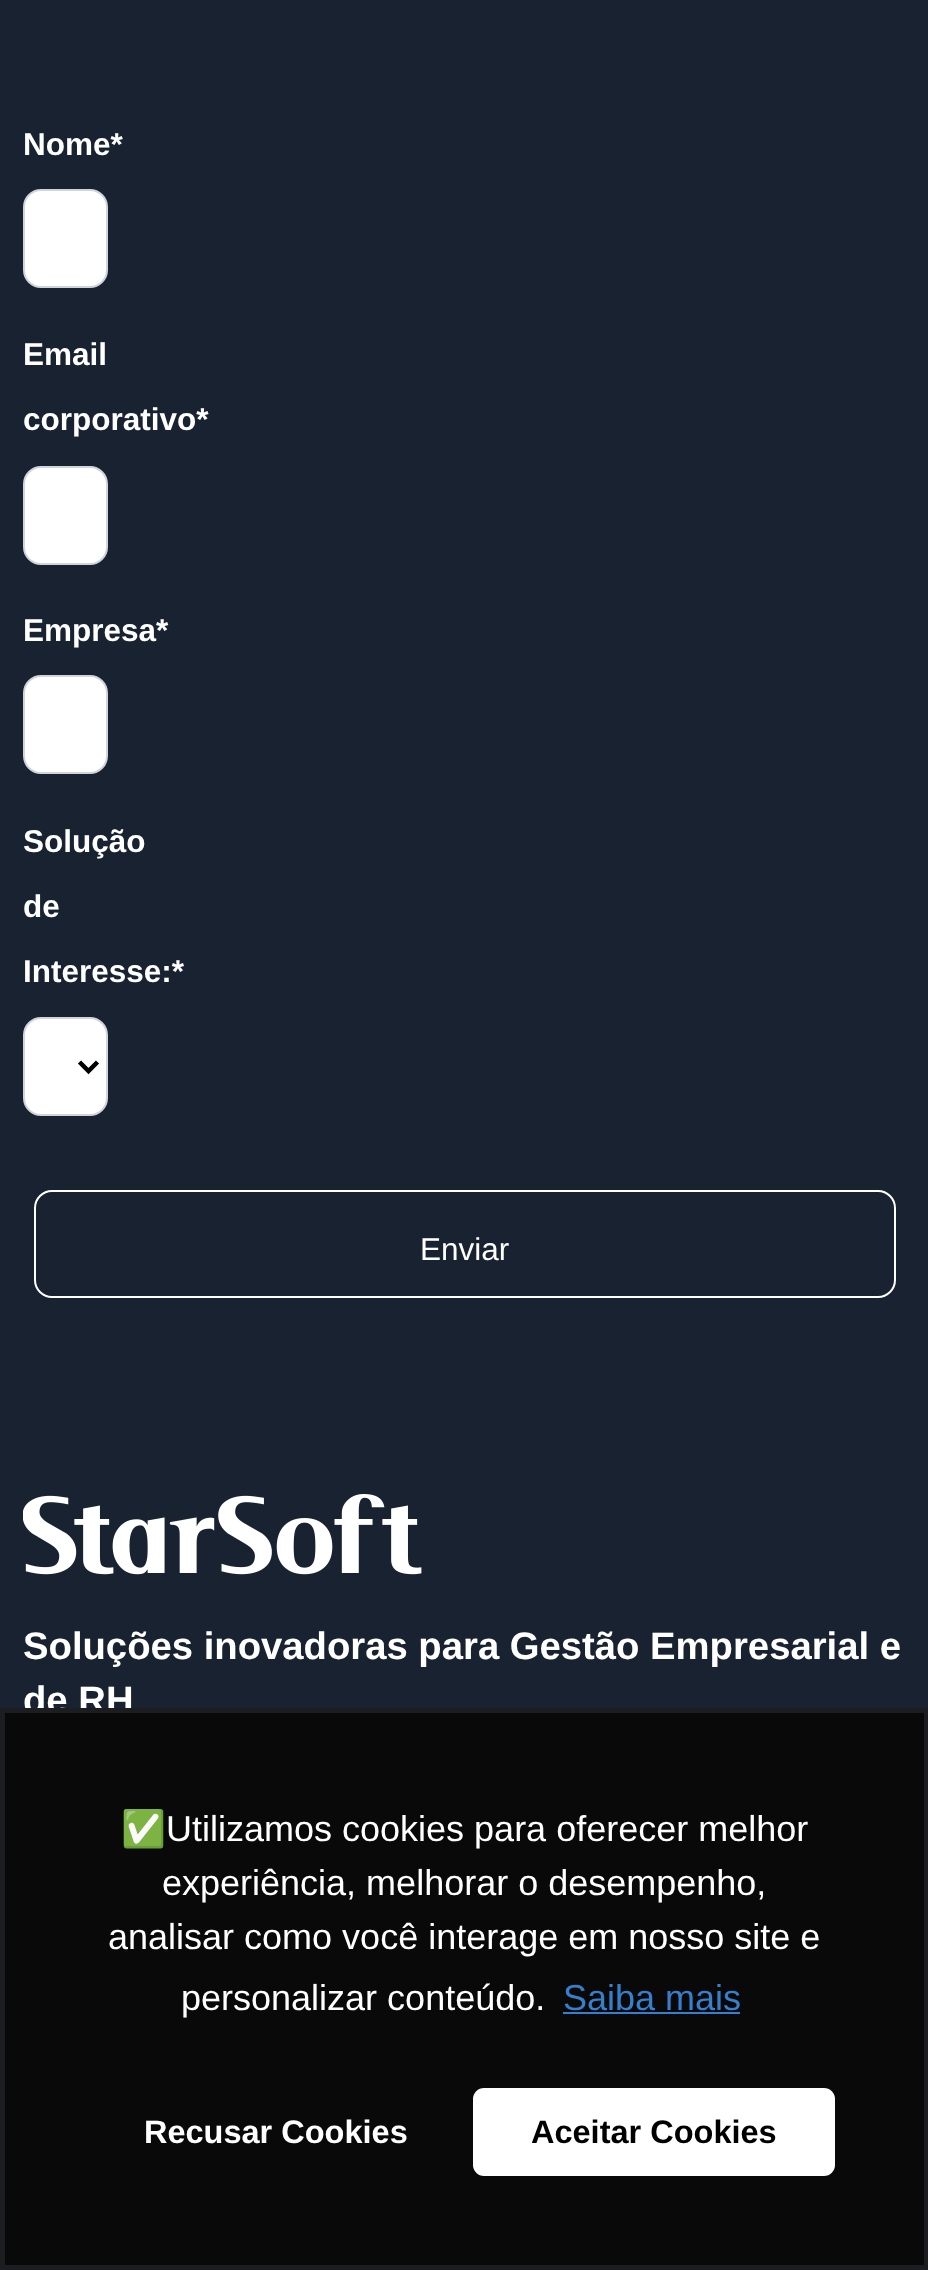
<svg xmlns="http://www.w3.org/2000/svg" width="928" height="2270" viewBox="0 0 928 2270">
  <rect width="100%" height="100%" fill="#182230"/>
  <rect x="24" y="190" width="83" height="97" rx="17" fill="#fff" stroke="#d0d5dd" stroke-width="2"/>
  <rect x="24" y="467" width="83" height="97" rx="17" fill="#fff" stroke="#d0d5dd" stroke-width="2"/>
  <rect x="24" y="676" width="83" height="97" rx="17" fill="#fff" stroke="#d0d5dd" stroke-width="2"/>
  <rect x="24" y="1018" width="83" height="97" rx="17" fill="#fff" stroke="#d0d5dd" stroke-width="2"/>
  <path d="M79.5 1062L88.5 1071L97.5 1062" fill="none" stroke="#000" stroke-width="4.5"/>
  <rect x="35" y="1191" width="860" height="106" rx="17" fill="none" stroke="#fff" stroke-width="2"/>
  <image x="23" y="1494" width="399" height="81" href="img/1.png"/>
  <g font-family="Liberation Sans" font-size="31.5" font-weight="bold" fill="#fff">
    <text x="23" y="155">Nome*</text>
    <text x="23" y="365">Email</text>
    <text x="23" y="430">corporativo*</text>
    <text x="23" y="641">Empresa*</text>
    <text x="23" y="852">Solução</text>
    <text x="23" y="917">de</text>
    <text x="23" y="982">Interesse:*</text>
  </g>
  <text x="420" y="1260" font-family="Liberation Sans" font-size="31.5" fill="#fff">Enviar</text>
  <g font-family="Liberation Sans" font-size="38.25" font-weight="bold" fill="#fff">
    <text x="23" y="1659">Soluções inovadoras para Gestão Empresarial e</text>
    <text x="23" y="1713">de RH</text>
  </g>
  <path d="M2.5 1710.5h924v557H2.5z" fill="#090909" stroke="#1b1d20" stroke-width="5"/>
  <text x="121" y="1841" font-family="Noto Color Emoji" font-size="36" fill="#fff">✅</text>
  <g font-family="Liberation Sans" font-size="36" fill="#fff">
    <text x="166" y="1841">Utilizamos cookies para oferecer melhor</text>
    <text x="162" y="1895">experiência, melhorar o desempenho,</text>
    <text x="108" y="1949">analisar como você interage em nosso site e</text>
    <text x="181" y="2010">personalizar conteúdo.</text>
  </g>
  <text x="563" y="2010" font-family="Liberation Sans" font-size="36" fill="#357fce">Saiba mais</text>
  <path d="M563 2012h177v2H563z" fill="#357fce"/>
  <text x="144" y="2143" font-family="Liberation Sans" font-size="32.5" font-weight="bold" fill="#fff">Recusar Cookies</text>
  <rect x="473" y="2088" width="362" height="88" rx="11" fill="#fff"/>
  <text x="531" y="2143" font-family="Liberation Sans" font-size="32.5" font-weight="bold" fill="#000">Aceitar Cookies</text>
</svg>
